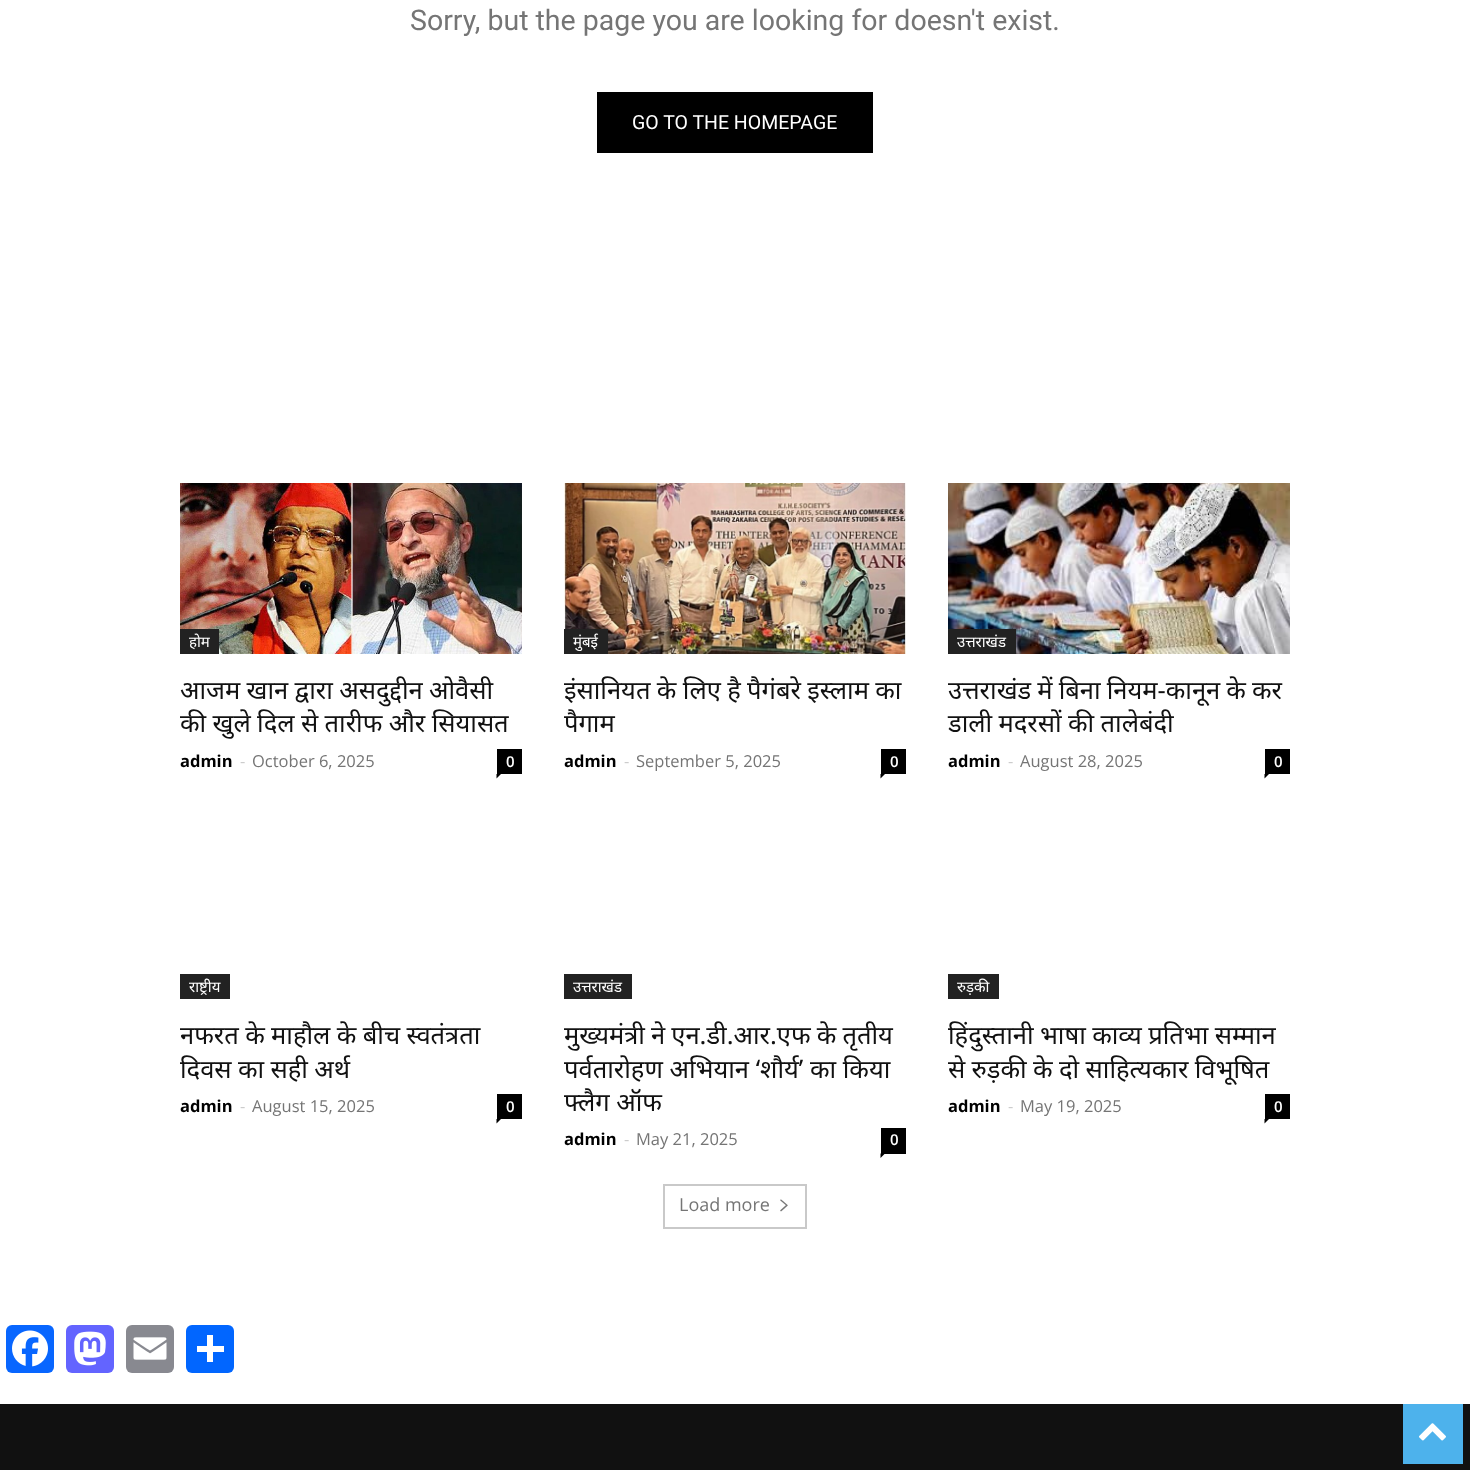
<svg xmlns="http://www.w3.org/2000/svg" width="1470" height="1470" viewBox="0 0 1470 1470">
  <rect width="100%" height="100%" fill="#fff"/>
  <path d="M597 92h276v61H597z" fill="#000"/>
  <image x="180" y="483" width="342" height="171" href="img/1.png"/>
  <path d="M180 629h39v25H180z" fill="#222"/>
  <path d="M497 749h25v25H497z" fill="#000"/>
  <path d="M496.5 774H501L496.5 778.5Z" fill="#000"/>
  <image x="564" y="483" width="342" height="171" href="img/2.png"/>
  <path d="M564 629h44v25H564z" fill="#222"/>
  <path d="M881 749h25v25H881z" fill="#000"/>
  <path d="M880.5 774H885L880.5 778.5Z" fill="#000"/>
  <image x="948" y="483" width="342" height="171" href="img/3.png"/>
  <path d="M948 629h68v25H948z" fill="#222"/>
  <path d="M1265 749h25v25H1265z" fill="#000"/>
  <path d="M1264.5 774H1269L1264.5 778.5Z" fill="#000"/>
  <path d="M180 974h50v25H180z" fill="#222"/>
  <path d="M497 1094h25v25H497z" fill="#000"/>
  <path d="M496.5 1119H501L496.5 1123.5Z" fill="#000"/>
  <path d="M564 974h68v25H564z" fill="#222"/>
  <path d="M881 1128h25v26H881z" fill="#000"/>
  <path d="M880.5 1153.5H885L880.5 1158Z" fill="#000"/>
  <path d="M948 974h51v25H948z" fill="#222"/>
  <path d="M1265 1094h25v25H1265z" fill="#000"/>
  <path d="M1264.5 1119H1269L1264.5 1123.5Z" fill="#000"/>
  <path d="M664 1185h142v43H664z" fill="none" stroke="#c9c9c9" stroke-width="2"/>
  <image x="780" y="1199" width="8" height="13" href="img/4.png"/>
  <rect x="6" y="1325" width="48" height="48" rx="6" fill="#0866ff"/>
  <image x="12" y="1330" width="36" height="37" href="img/5.png"/>
  <rect x="66" y="1325" width="48" height="48" rx="6" fill="#6364ff"/>
  <image x="74" y="1331" width="32" height="35" href="img/6.png"/>
  <rect x="126" y="1325" width="48" height="48" rx="6" fill="#888990"/>
  <image x="133" y="1337" width="34" height="23" href="img/7.png"/>
  <rect x="186" y="1325" width="48" height="48" rx="6" fill="#0166ff"/>
  <path d="M207 1335h6v27H207z" fill="#fff"/>
  <path d="M197 1346h27v6H197z" fill="#fff"/>
  <path d="M0 1404h1470v66H0z" fill="#111"/>
  <path d="M1403 1404h60v60H1403z" fill="#4db2ec"/>
  <image x="1419" y="1423" width="27" height="18" href="img/8.png"/>
  <text x="410" y="30" font-family="Roboto" font-size="28.5" fill="#757575">Sorry, but the page you are looking for doesn't exist.</text>
  <text x="632" y="129" font-family="Roboto" font-size="19.5" fill="#fff">GO TO THE HOMEPAGE</text>
  <text x="189" y="647" font-family="Noto Sans" font-size="15" fill="#fff">होम</text>
  <g font-family="Noto Sans" font-size="25.5" fill="#111">
    <text x="180" y="699" word-spacing="-0.25">आजम खान द्वारा असदुद्दीन ओवैसी</text>
    <text x="180" y="732" word-spacing="-0.25">की खुले दिल से तारीफ और सियासत</text>
  </g>
  <text x="180" y="767" font-family="Open Sans" font-size="16.5" font-weight="bold" fill="#000">admin</text>
  <text x="240" y="767" font-family="Open Sans" font-size="16.5" fill="#ccc">-</text>
  <text x="252" y="767" font-family="Open Sans" font-size="16.5" fill="#757575">October 6, 2025</text>
  <text x="506" y="767" font-family="Open Sans" font-size="15" font-weight="600" fill="#fff">0</text>
  <text x="573" y="647" font-family="Noto Sans" font-size="15" fill="#fff">मुंबई</text>
  <g font-family="Noto Sans" font-size="25.5" fill="#111">
    <text x="564" y="699" word-spacing="-0.25">इंसानियत के लिए है पैगंबरे इस्लाम का</text>
    <text x="564" y="732">पैगाम</text>
  </g>
  <text x="564" y="767" font-family="Open Sans" font-size="16.5" font-weight="bold" fill="#000">admin</text>
  <text x="624" y="767" font-family="Open Sans" font-size="16.5" fill="#ccc">-</text>
  <text x="636" y="767" font-family="Open Sans" font-size="16.5" fill="#757575">September 5, 2025</text>
  <text x="890" y="767" font-family="Open Sans" font-size="15" font-weight="600" fill="#fff">0</text>
  <text x="957" y="647" font-family="Noto Sans" font-size="15" fill="#fff">उत्तराखंड</text>
  <g font-family="Noto Sans" font-size="25.5" fill="#111">
    <text x="948" y="699" word-spacing="-0.5">उत्तराखंड में बिना नियम-कानून के कर</text>
    <text x="948" y="732" word-spacing="-0.25">डाली मदरसों की तालेबंदी</text>
  </g>
  <text x="948" y="767" font-family="Open Sans" font-size="16.5" font-weight="bold" fill="#000">admin</text>
  <text x="1008" y="767" font-family="Open Sans" font-size="16.5" fill="#ccc">-</text>
  <text x="1020" y="767" font-family="Open Sans" font-size="16.5" fill="#757575">August 28, 2025</text>
  <text x="1274" y="767" font-family="Open Sans" font-size="15" font-weight="600" fill="#fff">0</text>
  <text x="189" y="992" font-family="Noto Sans" font-size="15" fill="#fff">राष्ट्रीय</text>
  <g font-family="Noto Sans" font-size="25.5" fill="#111">
    <text x="180" y="1044" word-spacing="-0.25">नफरत के माहौल के बीच स्वतंत्रता</text>
    <text x="180" y="1078" word-spacing="-0.25">दिवस का सही अर्थ</text>
  </g>
  <text x="180" y="1112" font-family="Open Sans" font-size="16.5" font-weight="bold" fill="#000">admin</text>
  <text x="240" y="1112" font-family="Open Sans" font-size="16.5" fill="#ccc">-</text>
  <text x="252" y="1112" font-family="Open Sans" font-size="16.5" fill="#757575">August 15, 2025</text>
  <text x="506" y="1112" font-family="Open Sans" font-size="15" font-weight="600" fill="#fff">0</text>
  <text x="573" y="992" font-family="Noto Sans" font-size="15" fill="#fff">उत्तराखंड</text>
  <g font-family="Noto Sans" font-size="25.5" fill="#111">
    <text x="564" y="1044" word-spacing="-0.5">मुख्यमंत्री ने एन.डी.आर.एफ के तृतीय</text>
    <text x="564" y="1078">पर्वतारोहण अभियान ‘शौर्य’ का किया</text>
    <text x="564" y="1111">फ्लैग ऑफ</text>
  </g>
  <text x="564" y="1145" font-family="Open Sans" font-size="16.5" font-weight="bold" fill="#000">admin</text>
  <text x="624" y="1145" font-family="Open Sans" font-size="16.5" fill="#ccc">-</text>
  <text x="636" y="1145" font-family="Open Sans" font-size="16.5" fill="#757575">May 21, 2025</text>
  <text x="890" y="1145" font-family="Open Sans" font-size="15" font-weight="600" fill="#fff">0</text>
  <text x="957" y="992" font-family="Noto Sans" font-size="15" fill="#fff">रुड़की</text>
  <g font-family="Noto Sans" font-size="25.5" fill="#111">
    <text x="948" y="1044" word-spacing="-0.25">हिंदुस्तानी भाषा काव्य प्रतिभा सम्मान</text>
    <text x="948" y="1078" word-spacing="-0.25">से रुड़की के दो साहित्यकार विभूषित</text>
  </g>
  <text x="948" y="1112" font-family="Open Sans" font-size="16.5" font-weight="bold" fill="#000">admin</text>
  <text x="1008" y="1112" font-family="Open Sans" font-size="16.5" fill="#ccc">-</text>
  <text x="1020" y="1112" font-family="Open Sans" font-size="16.5" fill="#757575">May 19, 2025</text>
  <text x="1274" y="1112" font-family="Open Sans" font-size="15" font-weight="600" fill="#fff">0</text>
  <text x="679" y="1211" font-family="Open Sans" font-size="18" fill="#757575">Load more</text>
</svg>
